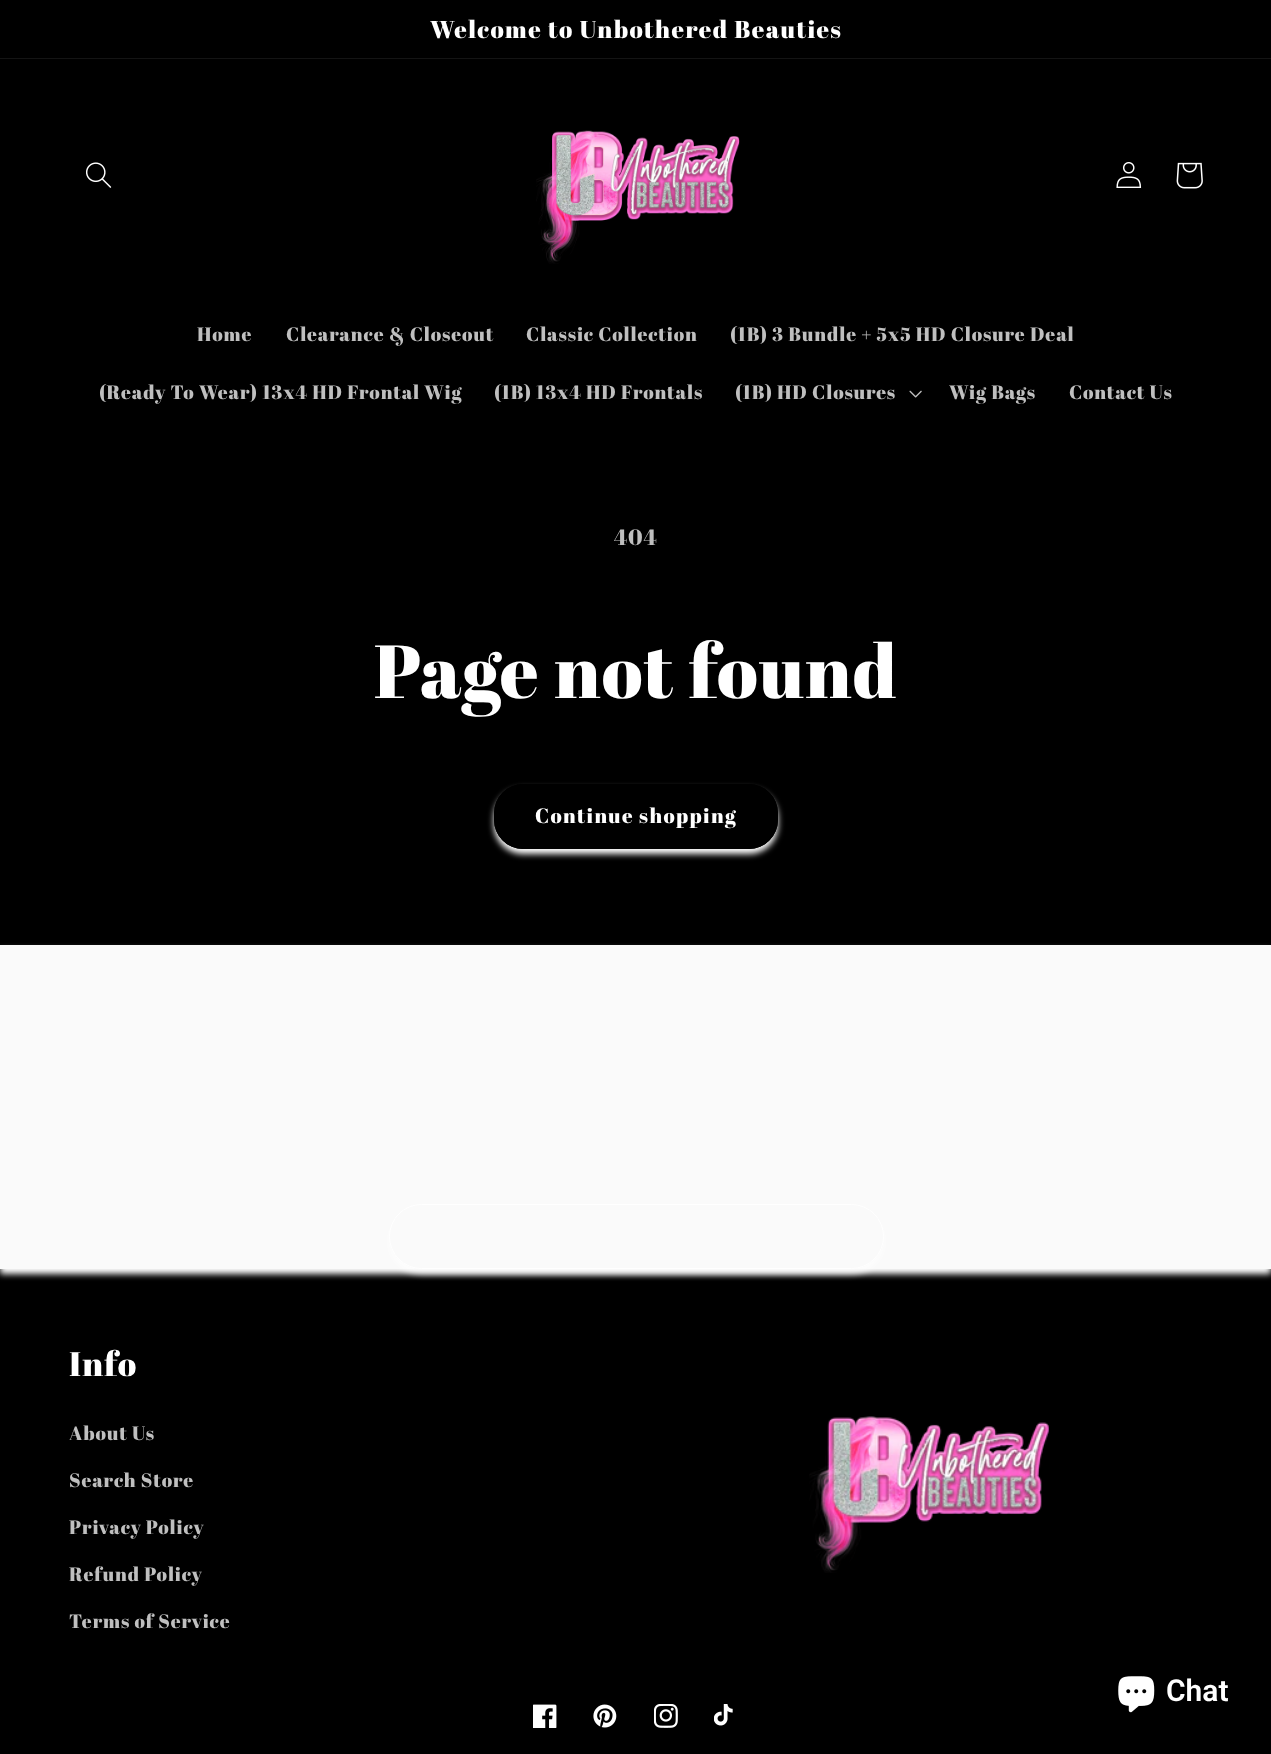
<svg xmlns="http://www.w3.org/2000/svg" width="1271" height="1754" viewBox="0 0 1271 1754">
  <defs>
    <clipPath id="clip1"><path d="M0 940H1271V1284H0ZM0 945H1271V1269H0Z" clip-rule="evenodd"/></clipPath>
    <clipPath id="clip2"><path d="M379 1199H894V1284H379ZM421.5 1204H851.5C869.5 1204 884 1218.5 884 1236.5C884 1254.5 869.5 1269 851.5 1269H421.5C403.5 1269 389 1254.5 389 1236.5C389 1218.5 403.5 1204 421.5 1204Z" clip-rule="evenodd"/></clipPath>
  </defs>
  <rect width="100%" height="100%" fill="#000"/>
  <path d="M0 58h1271v1H0z" fill="#141414"/>
  <image x="86" y="162" width="26" height="26" href="img/1.png"/>
  <image x="536" y="130" width="204" height="134" href="img/2.png"/>
  <image x="1116" y="162" width="26" height="26" href="img/3.png"/>
  <image x="1176" y="162" width="27" height="27" href="img/4.png"/>
  <image x="909" y="390" width="13" height="8" href="img/5.png"/>
  <rect x="494" y="789" width="284" height="65" rx="29" fill="#fff" filter="blur(3px)"/>
  <rect x="494" y="784" width="284" height="65" rx="29" fill="#000"/>
  <rect x="494.5" y="784.5" width="283" height="64" rx="28.5" fill="none" stroke="#000"/>
  <path d="M0 945h1271v324H0z" fill="#fafafa"/>
  <g clip-path="url(#clip1)">
    <path d="M0 950h1271v324H0z" fill="#fff" filter="blur(3px)"/>
  </g>
  <g clip-path="url(#clip2)">
    <rect x="389" y="1209" width="495" height="65" rx="32.5" fill="#ffffffb3" filter="blur(3px)"/>
  </g>
  <rect x="389.5" y="1204.5" width="494" height="64" rx="32" fill="none" stroke="#fff"/>
  <image x="809" y="1416" width="240" height="157" href="img/6.png"/>
  <image x="533" y="1704" width="24" height="24" href="img/7.png"/>
  <image x="593" y="1704" width="24" height="24" href="img/8.png"/>
  <image x="654" y="1704" width="24" height="24" href="img/9.png"/>
  <image x="714" y="1704" width="19" height="22" href="img/10.png"/>
  <image x="1118" y="1676" width="37" height="37" href="img/11.png"/>
  <text x="430" y="38" font-family="Abril Fatface" font-size="24.4" letter-spacing="1.4" fill="#fff">Welcome to Unbothered Beauties</text>
  <g font-family="Abril Fatface" font-size="19.25" letter-spacing="0.85" fill="#bfbfbf">
    <text x="197" y="341">Home</text>
    <text x="286" y="341">Clearance &amp; Closeout</text>
    <text x="526" y="341">Classic Collection</text>
    <text x="730" y="341">(1B) 3 Bundle + 5x5 HD Closure Deal</text>
    <text x="99" y="399">(Ready To Wear) 13x4 HD Frontal Wig</text>
    <text x="494" y="399">(1B) 13x4 HD Frontals</text>
    <text x="735" y="399">(1B) HD Closures</text>
    <text x="949" y="399">Wig Bags</text>
    <text x="1069" y="399">Contact Us</text>
  </g>
  <text x="614" y="545" font-family="Abril Fatface" font-size="22" letter-spacing="0.85" fill="#bfbfbf">404</text>
  <text x="374" y="698" font-family="Abril Fatface" font-size="75" letter-spacing="1.1" fill="#fff">Page not found</text>
  <text x="535" y="823" font-family="Abril Fatface" font-size="20.6" letter-spacing="1.4" fill="#fff">Continue shopping</text>
  <text x="69" y="1376" font-family="Abril Fatface" font-size="34" letter-spacing="1.1" fill="#fff">Info</text>
  <g font-family="Abril Fatface" font-size="19.25" letter-spacing="0.85" fill="#bfbfbf">
    <text x="69" y="1440">About Us</text>
    <text x="69" y="1487">Search Store</text>
    <text x="69" y="1534">Privacy Policy</text>
    <text x="69" y="1581">Refund Policy</text>
    <text x="69" y="1628">Terms of Service</text>
  </g>
  <text x="1166" y="1701" font-family="Roboto" font-size="30" font-weight="600" fill="#fff">Chat</text>
</svg>
